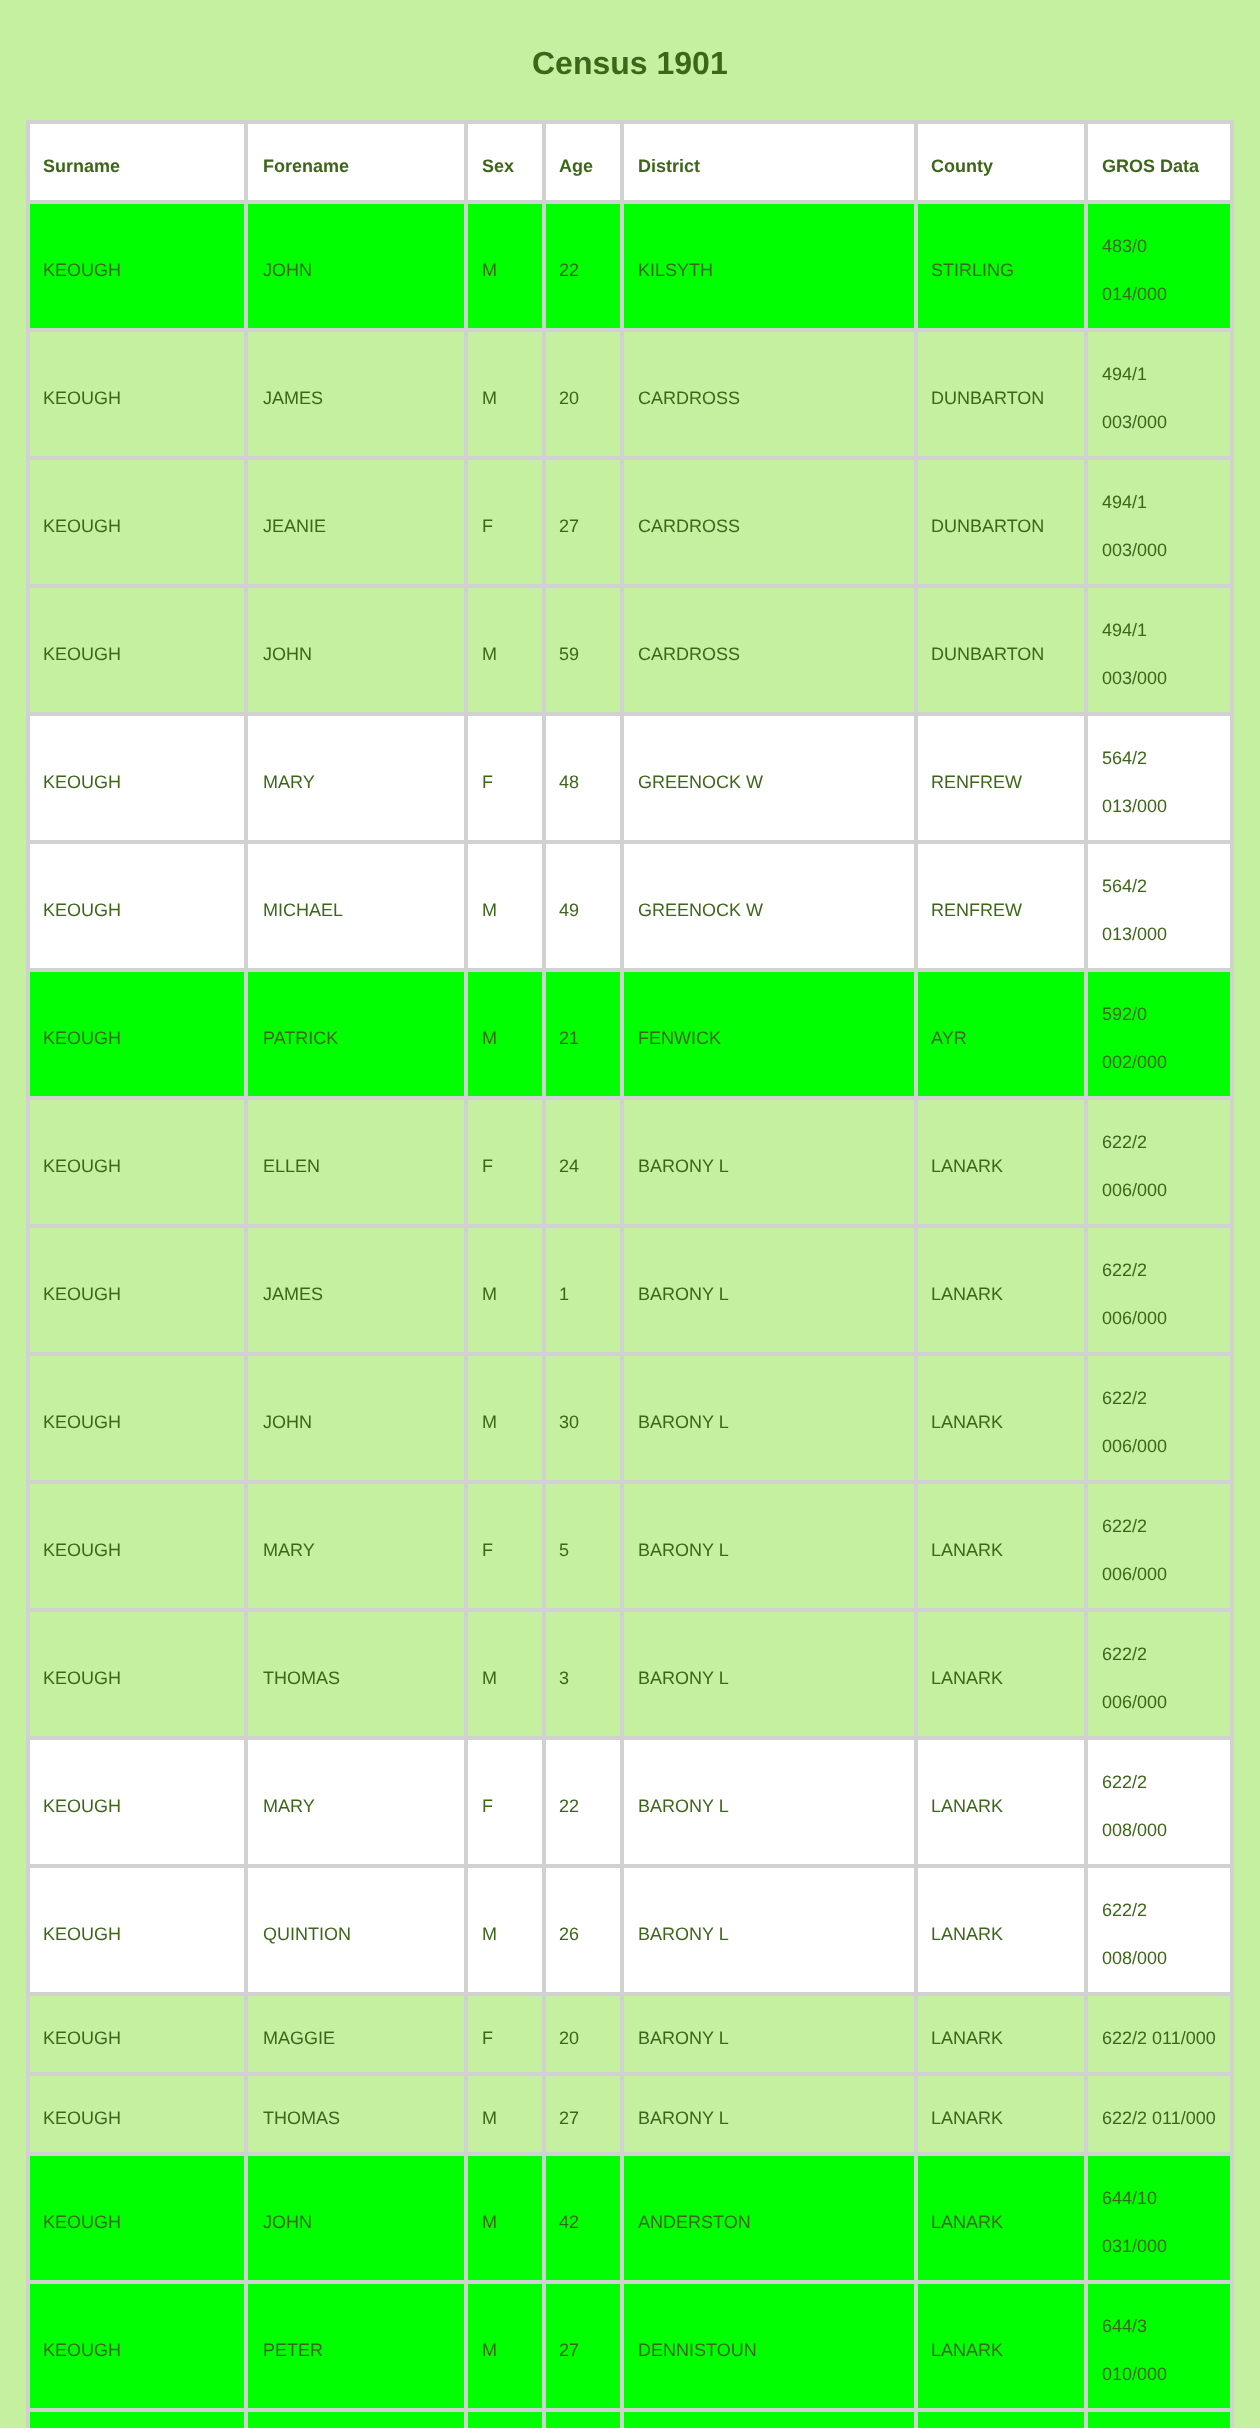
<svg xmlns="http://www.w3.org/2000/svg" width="1260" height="2428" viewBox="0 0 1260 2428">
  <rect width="100%" height="100%" fill="#c5f0a0"/>
  <path d="M27 121h1206v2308H27z" fill="none" stroke="#d1d1d1" stroke-width="2"/>
  <path d="M29 123h216v78H29z" fill="#fff" stroke="#d1d1d1" stroke-width="2"/>
  <path d="M247 123h218v78H247z" fill="#fff" stroke="#d1d1d1" stroke-width="2"/>
  <path d="M467 123h76v78H467z" fill="#fff" stroke="#d1d1d1" stroke-width="2"/>
  <path d="M545 123h76v78H545z" fill="#fff" stroke="#d1d1d1" stroke-width="2"/>
  <path d="M623 123h292v78H623z" fill="#fff" stroke="#d1d1d1" stroke-width="2"/>
  <path d="M917 123h168v78H917z" fill="#fff" stroke="#d1d1d1" stroke-width="2"/>
  <path d="M1087 123h144v78H1087z" fill="#fff" stroke="#d1d1d1" stroke-width="2"/>
  <path d="M30 204h1200v124H30z" fill="#0f0"/>
  <path d="M29 203h216v126H29z" fill="none" stroke="#d1d1d1" stroke-width="2"/>
  <path d="M247 203h218v126H247z" fill="none" stroke="#d1d1d1" stroke-width="2"/>
  <path d="M467 203h76v126H467z" fill="none" stroke="#d1d1d1" stroke-width="2"/>
  <path d="M545 203h76v126H545z" fill="none" stroke="#d1d1d1" stroke-width="2"/>
  <path d="M623 203h292v126H623z" fill="none" stroke="#d1d1d1" stroke-width="2"/>
  <path d="M917 203h168v126H917z" fill="none" stroke="#d1d1d1" stroke-width="2"/>
  <path d="M1087 203h144v126H1087z" fill="none" stroke="#d1d1d1" stroke-width="2"/>
  <path d="M29 331h216v126H29z" fill="none" stroke="#d1d1d1" stroke-width="2"/>
  <path d="M247 331h218v126H247z" fill="none" stroke="#d1d1d1" stroke-width="2"/>
  <path d="M467 331h76v126H467z" fill="none" stroke="#d1d1d1" stroke-width="2"/>
  <path d="M545 331h76v126H545z" fill="none" stroke="#d1d1d1" stroke-width="2"/>
  <path d="M623 331h292v126H623z" fill="none" stroke="#d1d1d1" stroke-width="2"/>
  <path d="M917 331h168v126H917z" fill="none" stroke="#d1d1d1" stroke-width="2"/>
  <path d="M1087 331h144v126H1087z" fill="none" stroke="#d1d1d1" stroke-width="2"/>
  <path d="M29 459h216v126H29z" fill="none" stroke="#d1d1d1" stroke-width="2"/>
  <path d="M247 459h218v126H247z" fill="none" stroke="#d1d1d1" stroke-width="2"/>
  <path d="M467 459h76v126H467z" fill="none" stroke="#d1d1d1" stroke-width="2"/>
  <path d="M545 459h76v126H545z" fill="none" stroke="#d1d1d1" stroke-width="2"/>
  <path d="M623 459h292v126H623z" fill="none" stroke="#d1d1d1" stroke-width="2"/>
  <path d="M917 459h168v126H917z" fill="none" stroke="#d1d1d1" stroke-width="2"/>
  <path d="M1087 459h144v126H1087z" fill="none" stroke="#d1d1d1" stroke-width="2"/>
  <path d="M29 587h216v126H29z" fill="none" stroke="#d1d1d1" stroke-width="2"/>
  <path d="M247 587h218v126H247z" fill="none" stroke="#d1d1d1" stroke-width="2"/>
  <path d="M467 587h76v126H467z" fill="none" stroke="#d1d1d1" stroke-width="2"/>
  <path d="M545 587h76v126H545z" fill="none" stroke="#d1d1d1" stroke-width="2"/>
  <path d="M623 587h292v126H623z" fill="none" stroke="#d1d1d1" stroke-width="2"/>
  <path d="M917 587h168v126H917z" fill="none" stroke="#d1d1d1" stroke-width="2"/>
  <path d="M1087 587h144v126H1087z" fill="none" stroke="#d1d1d1" stroke-width="2"/>
  <path d="M30 716h1200v124H30z" fill="#fff"/>
  <path d="M29 715h216v126H29z" fill="none" stroke="#d1d1d1" stroke-width="2"/>
  <path d="M247 715h218v126H247z" fill="none" stroke="#d1d1d1" stroke-width="2"/>
  <path d="M467 715h76v126H467z" fill="none" stroke="#d1d1d1" stroke-width="2"/>
  <path d="M545 715h76v126H545z" fill="none" stroke="#d1d1d1" stroke-width="2"/>
  <path d="M623 715h292v126H623z" fill="none" stroke="#d1d1d1" stroke-width="2"/>
  <path d="M917 715h168v126H917z" fill="none" stroke="#d1d1d1" stroke-width="2"/>
  <path d="M1087 715h144v126H1087z" fill="none" stroke="#d1d1d1" stroke-width="2"/>
  <path d="M30 844h1200v124H30z" fill="#fff"/>
  <path d="M29 843h216v126H29z" fill="none" stroke="#d1d1d1" stroke-width="2"/>
  <path d="M247 843h218v126H247z" fill="none" stroke="#d1d1d1" stroke-width="2"/>
  <path d="M467 843h76v126H467z" fill="none" stroke="#d1d1d1" stroke-width="2"/>
  <path d="M545 843h76v126H545z" fill="none" stroke="#d1d1d1" stroke-width="2"/>
  <path d="M623 843h292v126H623z" fill="none" stroke="#d1d1d1" stroke-width="2"/>
  <path d="M917 843h168v126H917z" fill="none" stroke="#d1d1d1" stroke-width="2"/>
  <path d="M1087 843h144v126H1087z" fill="none" stroke="#d1d1d1" stroke-width="2"/>
  <path d="M30 972h1200v124H30z" fill="#0f0"/>
  <path d="M29 971h216v126H29z" fill="none" stroke="#d1d1d1" stroke-width="2"/>
  <path d="M247 971h218v126H247z" fill="none" stroke="#d1d1d1" stroke-width="2"/>
  <path d="M467 971h76v126H467z" fill="none" stroke="#d1d1d1" stroke-width="2"/>
  <path d="M545 971h76v126H545z" fill="none" stroke="#d1d1d1" stroke-width="2"/>
  <path d="M623 971h292v126H623z" fill="none" stroke="#d1d1d1" stroke-width="2"/>
  <path d="M917 971h168v126H917z" fill="none" stroke="#d1d1d1" stroke-width="2"/>
  <path d="M1087 971h144v126H1087z" fill="none" stroke="#d1d1d1" stroke-width="2"/>
  <path d="M29 1099h216v126H29z" fill="none" stroke="#d1d1d1" stroke-width="2"/>
  <path d="M247 1099h218v126H247z" fill="none" stroke="#d1d1d1" stroke-width="2"/>
  <path d="M467 1099h76v126H467z" fill="none" stroke="#d1d1d1" stroke-width="2"/>
  <path d="M545 1099h76v126H545z" fill="none" stroke="#d1d1d1" stroke-width="2"/>
  <path d="M623 1099h292v126H623z" fill="none" stroke="#d1d1d1" stroke-width="2"/>
  <path d="M917 1099h168v126H917z" fill="none" stroke="#d1d1d1" stroke-width="2"/>
  <path d="M1087 1099h144v126H1087z" fill="none" stroke="#d1d1d1" stroke-width="2"/>
  <path d="M29 1227h216v126H29z" fill="none" stroke="#d1d1d1" stroke-width="2"/>
  <path d="M247 1227h218v126H247z" fill="none" stroke="#d1d1d1" stroke-width="2"/>
  <path d="M467 1227h76v126H467z" fill="none" stroke="#d1d1d1" stroke-width="2"/>
  <path d="M545 1227h76v126H545z" fill="none" stroke="#d1d1d1" stroke-width="2"/>
  <path d="M623 1227h292v126H623z" fill="none" stroke="#d1d1d1" stroke-width="2"/>
  <path d="M917 1227h168v126H917z" fill="none" stroke="#d1d1d1" stroke-width="2"/>
  <path d="M1087 1227h144v126H1087z" fill="none" stroke="#d1d1d1" stroke-width="2"/>
  <path d="M29 1355h216v126H29z" fill="none" stroke="#d1d1d1" stroke-width="2"/>
  <path d="M247 1355h218v126H247z" fill="none" stroke="#d1d1d1" stroke-width="2"/>
  <path d="M467 1355h76v126H467z" fill="none" stroke="#d1d1d1" stroke-width="2"/>
  <path d="M545 1355h76v126H545z" fill="none" stroke="#d1d1d1" stroke-width="2"/>
  <path d="M623 1355h292v126H623z" fill="none" stroke="#d1d1d1" stroke-width="2"/>
  <path d="M917 1355h168v126H917z" fill="none" stroke="#d1d1d1" stroke-width="2"/>
  <path d="M1087 1355h144v126H1087z" fill="none" stroke="#d1d1d1" stroke-width="2"/>
  <path d="M29 1483h216v126H29z" fill="none" stroke="#d1d1d1" stroke-width="2"/>
  <path d="M247 1483h218v126H247z" fill="none" stroke="#d1d1d1" stroke-width="2"/>
  <path d="M467 1483h76v126H467z" fill="none" stroke="#d1d1d1" stroke-width="2"/>
  <path d="M545 1483h76v126H545z" fill="none" stroke="#d1d1d1" stroke-width="2"/>
  <path d="M623 1483h292v126H623z" fill="none" stroke="#d1d1d1" stroke-width="2"/>
  <path d="M917 1483h168v126H917z" fill="none" stroke="#d1d1d1" stroke-width="2"/>
  <path d="M1087 1483h144v126H1087z" fill="none" stroke="#d1d1d1" stroke-width="2"/>
  <path d="M29 1611h216v126H29z" fill="none" stroke="#d1d1d1" stroke-width="2"/>
  <path d="M247 1611h218v126H247z" fill="none" stroke="#d1d1d1" stroke-width="2"/>
  <path d="M467 1611h76v126H467z" fill="none" stroke="#d1d1d1" stroke-width="2"/>
  <path d="M545 1611h76v126H545z" fill="none" stroke="#d1d1d1" stroke-width="2"/>
  <path d="M623 1611h292v126H623z" fill="none" stroke="#d1d1d1" stroke-width="2"/>
  <path d="M917 1611h168v126H917z" fill="none" stroke="#d1d1d1" stroke-width="2"/>
  <path d="M1087 1611h144v126H1087z" fill="none" stroke="#d1d1d1" stroke-width="2"/>
  <path d="M30 1740h1200v124H30z" fill="#fff"/>
  <path d="M29 1739h216v126H29z" fill="none" stroke="#d1d1d1" stroke-width="2"/>
  <path d="M247 1739h218v126H247z" fill="none" stroke="#d1d1d1" stroke-width="2"/>
  <path d="M467 1739h76v126H467z" fill="none" stroke="#d1d1d1" stroke-width="2"/>
  <path d="M545 1739h76v126H545z" fill="none" stroke="#d1d1d1" stroke-width="2"/>
  <path d="M623 1739h292v126H623z" fill="none" stroke="#d1d1d1" stroke-width="2"/>
  <path d="M917 1739h168v126H917z" fill="none" stroke="#d1d1d1" stroke-width="2"/>
  <path d="M1087 1739h144v126H1087z" fill="none" stroke="#d1d1d1" stroke-width="2"/>
  <path d="M30 1868h1200v124H30z" fill="#fff"/>
  <path d="M29 1867h216v126H29z" fill="none" stroke="#d1d1d1" stroke-width="2"/>
  <path d="M247 1867h218v126H247z" fill="none" stroke="#d1d1d1" stroke-width="2"/>
  <path d="M467 1867h76v126H467z" fill="none" stroke="#d1d1d1" stroke-width="2"/>
  <path d="M545 1867h76v126H545z" fill="none" stroke="#d1d1d1" stroke-width="2"/>
  <path d="M623 1867h292v126H623z" fill="none" stroke="#d1d1d1" stroke-width="2"/>
  <path d="M917 1867h168v126H917z" fill="none" stroke="#d1d1d1" stroke-width="2"/>
  <path d="M1087 1867h144v126H1087z" fill="none" stroke="#d1d1d1" stroke-width="2"/>
  <path d="M29 1995h216v78H29z" fill="none" stroke="#d1d1d1" stroke-width="2"/>
  <path d="M247 1995h218v78H247z" fill="none" stroke="#d1d1d1" stroke-width="2"/>
  <path d="M467 1995h76v78H467z" fill="none" stroke="#d1d1d1" stroke-width="2"/>
  <path d="M545 1995h76v78H545z" fill="none" stroke="#d1d1d1" stroke-width="2"/>
  <path d="M623 1995h292v78H623z" fill="none" stroke="#d1d1d1" stroke-width="2"/>
  <path d="M917 1995h168v78H917z" fill="none" stroke="#d1d1d1" stroke-width="2"/>
  <path d="M1087 1995h144v78H1087z" fill="none" stroke="#d1d1d1" stroke-width="2"/>
  <path d="M29 2075h216v78H29z" fill="none" stroke="#d1d1d1" stroke-width="2"/>
  <path d="M247 2075h218v78H247z" fill="none" stroke="#d1d1d1" stroke-width="2"/>
  <path d="M467 2075h76v78H467z" fill="none" stroke="#d1d1d1" stroke-width="2"/>
  <path d="M545 2075h76v78H545z" fill="none" stroke="#d1d1d1" stroke-width="2"/>
  <path d="M623 2075h292v78H623z" fill="none" stroke="#d1d1d1" stroke-width="2"/>
  <path d="M917 2075h168v78H917z" fill="none" stroke="#d1d1d1" stroke-width="2"/>
  <path d="M1087 2075h144v78H1087z" fill="none" stroke="#d1d1d1" stroke-width="2"/>
  <path d="M30 2156h1200v124H30z" fill="#0f0"/>
  <path d="M29 2155h216v126H29z" fill="none" stroke="#d1d1d1" stroke-width="2"/>
  <path d="M247 2155h218v126H247z" fill="none" stroke="#d1d1d1" stroke-width="2"/>
  <path d="M467 2155h76v126H467z" fill="none" stroke="#d1d1d1" stroke-width="2"/>
  <path d="M545 2155h76v126H545z" fill="none" stroke="#d1d1d1" stroke-width="2"/>
  <path d="M623 2155h292v126H623z" fill="none" stroke="#d1d1d1" stroke-width="2"/>
  <path d="M917 2155h168v126H917z" fill="none" stroke="#d1d1d1" stroke-width="2"/>
  <path d="M1087 2155h144v126H1087z" fill="none" stroke="#d1d1d1" stroke-width="2"/>
  <path d="M30 2284h1200v124H30z" fill="#0f0"/>
  <path d="M29 2283h216v126H29z" fill="none" stroke="#d1d1d1" stroke-width="2"/>
  <path d="M247 2283h218v126H247z" fill="none" stroke="#d1d1d1" stroke-width="2"/>
  <path d="M467 2283h76v126H467z" fill="none" stroke="#d1d1d1" stroke-width="2"/>
  <path d="M545 2283h76v126H545z" fill="none" stroke="#d1d1d1" stroke-width="2"/>
  <path d="M623 2283h292v126H623z" fill="none" stroke="#d1d1d1" stroke-width="2"/>
  <path d="M917 2283h168v126H917z" fill="none" stroke="#d1d1d1" stroke-width="2"/>
  <path d="M1087 2283h144v126H1087z" fill="none" stroke="#d1d1d1" stroke-width="2"/>
  <path d="M30 2412h1200v16H30z" fill="#0f0"/>
  <path d="M29 2411h216v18H29z" fill="none" stroke="#d1d1d1" stroke-width="2"/>
  <path d="M247 2411h218v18H247z" fill="none" stroke="#d1d1d1" stroke-width="2"/>
  <path d="M467 2411h76v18H467z" fill="none" stroke="#d1d1d1" stroke-width="2"/>
  <path d="M545 2411h76v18H545z" fill="none" stroke="#d1d1d1" stroke-width="2"/>
  <path d="M623 2411h292v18H623z" fill="none" stroke="#d1d1d1" stroke-width="2"/>
  <path d="M917 2411h168v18H917z" fill="none" stroke="#d1d1d1" stroke-width="2"/>
  <path d="M1087 2411h144v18H1087z" fill="none" stroke="#d1d1d1" stroke-width="2"/>
  <text x="532" y="74" font-family="Liberation Sans" font-size="32" font-weight="bold" fill="#3d661a">Census 1901</text>
  <g font-family="Liberation Sans" font-size="18" font-weight="bold" fill="#3d661a">
    <text x="43" y="172">Surname</text>
    <text x="263" y="172">Forename</text>
    <text x="482" y="172">Sex</text>
    <text x="559" y="172">Age</text>
    <text x="638" y="172">District</text>
    <text x="931" y="172">County</text>
    <text x="1102" y="172">GROS Data</text>
  </g>
  <g font-family="Liberation Sans" font-size="18" fill="#3d661a">
    <text x="43" y="276">KEOUGH</text>
    <text x="263" y="276">JOHN</text>
    <text x="482" y="276">M</text>
    <text x="559" y="276">22</text>
    <text x="638" y="276">KILSYTH</text>
    <text x="931" y="276">STIRLING</text>
    <text x="1102" y="252">483/0</text>
    <text x="1102" y="300">014/000</text>
    <text x="43" y="404">KEOUGH</text>
    <text x="263" y="404">JAMES</text>
    <text x="482" y="404">M</text>
    <text x="559" y="404">20</text>
    <text x="638" y="404">CARDROSS</text>
    <text x="931" y="404">DUNBARTON</text>
    <text x="1102" y="380">494/1</text>
    <text x="1102" y="428">003/000</text>
    <text x="43" y="532">KEOUGH</text>
    <text x="263" y="532">JEANIE</text>
    <text x="482" y="532">F</text>
    <text x="559" y="532">27</text>
    <text x="638" y="532">CARDROSS</text>
    <text x="931" y="532">DUNBARTON</text>
    <text x="1102" y="508">494/1</text>
    <text x="1102" y="556">003/000</text>
    <text x="43" y="660">KEOUGH</text>
    <text x="263" y="660">JOHN</text>
    <text x="482" y="660">M</text>
    <text x="559" y="660">59</text>
    <text x="638" y="660">CARDROSS</text>
    <text x="931" y="660">DUNBARTON</text>
    <text x="1102" y="636">494/1</text>
    <text x="1102" y="684">003/000</text>
    <text x="43" y="788">KEOUGH</text>
    <text x="263" y="788">MARY</text>
    <text x="482" y="788">F</text>
    <text x="559" y="788">48</text>
    <text x="638" y="788">GREENOCK W</text>
    <text x="931" y="788">RENFREW</text>
    <text x="1102" y="764">564/2</text>
    <text x="1102" y="812">013/000</text>
    <text x="43" y="916">KEOUGH</text>
    <text x="263" y="916">MICHAEL</text>
    <text x="482" y="916">M</text>
    <text x="559" y="916">49</text>
    <text x="638" y="916">GREENOCK W</text>
    <text x="931" y="916">RENFREW</text>
    <text x="1102" y="892">564/2</text>
    <text x="1102" y="940">013/000</text>
    <text x="43" y="1044">KEOUGH</text>
    <text x="263" y="1044">PATRICK</text>
    <text x="482" y="1044">M</text>
    <text x="559" y="1044">21</text>
    <text x="638" y="1044">FENWICK</text>
    <text x="931" y="1044">AYR</text>
    <text x="1102" y="1020">592/0</text>
    <text x="1102" y="1068">002/000</text>
    <text x="43" y="1172">KEOUGH</text>
    <text x="263" y="1172">ELLEN</text>
    <text x="482" y="1172">F</text>
    <text x="559" y="1172">24</text>
    <text x="638" y="1172">BARONY L</text>
    <text x="931" y="1172">LANARK</text>
    <text x="1102" y="1148">622/2</text>
    <text x="1102" y="1196">006/000</text>
    <text x="43" y="1300">KEOUGH</text>
    <text x="263" y="1300">JAMES</text>
    <text x="482" y="1300">M</text>
    <text x="559" y="1300">1</text>
    <text x="638" y="1300">BARONY L</text>
    <text x="931" y="1300">LANARK</text>
    <text x="1102" y="1276">622/2</text>
    <text x="1102" y="1324">006/000</text>
    <text x="43" y="1428">KEOUGH</text>
    <text x="263" y="1428">JOHN</text>
    <text x="482" y="1428">M</text>
    <text x="559" y="1428">30</text>
    <text x="638" y="1428">BARONY L</text>
    <text x="931" y="1428">LANARK</text>
    <text x="1102" y="1404">622/2</text>
    <text x="1102" y="1452">006/000</text>
    <text x="43" y="1556">KEOUGH</text>
    <text x="263" y="1556">MARY</text>
    <text x="482" y="1556">F</text>
    <text x="559" y="1556">5</text>
    <text x="638" y="1556">BARONY L</text>
    <text x="931" y="1556">LANARK</text>
    <text x="1102" y="1532">622/2</text>
    <text x="1102" y="1580">006/000</text>
    <text x="43" y="1684">KEOUGH</text>
    <text x="263" y="1684">THOMAS</text>
    <text x="482" y="1684">M</text>
    <text x="559" y="1684">3</text>
    <text x="638" y="1684">BARONY L</text>
    <text x="931" y="1684">LANARK</text>
    <text x="1102" y="1660">622/2</text>
    <text x="1102" y="1708">006/000</text>
    <text x="43" y="1812">KEOUGH</text>
    <text x="263" y="1812">MARY</text>
    <text x="482" y="1812">F</text>
    <text x="559" y="1812">22</text>
    <text x="638" y="1812">BARONY L</text>
    <text x="931" y="1812">LANARK</text>
    <text x="1102" y="1788">622/2</text>
    <text x="1102" y="1836">008/000</text>
    <text x="43" y="1940">KEOUGH</text>
    <text x="263" y="1940">QUINTION</text>
    <text x="482" y="1940">M</text>
    <text x="559" y="1940">26</text>
    <text x="638" y="1940">BARONY L</text>
    <text x="931" y="1940">LANARK</text>
    <text x="1102" y="1916">622/2</text>
    <text x="1102" y="1964">008/000</text>
    <text x="43" y="2044">KEOUGH</text>
    <text x="263" y="2044">MAGGIE</text>
    <text x="482" y="2044">F</text>
    <text x="559" y="2044">20</text>
    <text x="638" y="2044">BARONY L</text>
    <text x="931" y="2044">LANARK</text>
    <text x="1102" y="2044">622/2 011/000</text>
    <text x="43" y="2124">KEOUGH</text>
    <text x="263" y="2124">THOMAS</text>
    <text x="482" y="2124">M</text>
    <text x="559" y="2124">27</text>
    <text x="638" y="2124">BARONY L</text>
    <text x="931" y="2124">LANARK</text>
    <text x="1102" y="2124">622/2 011/000</text>
    <text x="43" y="2228">KEOUGH</text>
    <text x="263" y="2228">JOHN</text>
    <text x="482" y="2228">M</text>
    <text x="559" y="2228">42</text>
    <text x="638" y="2228">ANDERSTON</text>
    <text x="931" y="2228">LANARK</text>
    <text x="1102" y="2204">644/10</text>
    <text x="1102" y="2252">031/000</text>
    <text x="43" y="2356">KEOUGH</text>
    <text x="263" y="2356">PETER</text>
    <text x="482" y="2356">M</text>
    <text x="559" y="2356">27</text>
    <text x="638" y="2356">DENNISTOUN</text>
    <text x="931" y="2356">LANARK</text>
    <text x="1102" y="2332">644/3</text>
    <text x="1102" y="2380">010/000</text>
  </g>
</svg>
